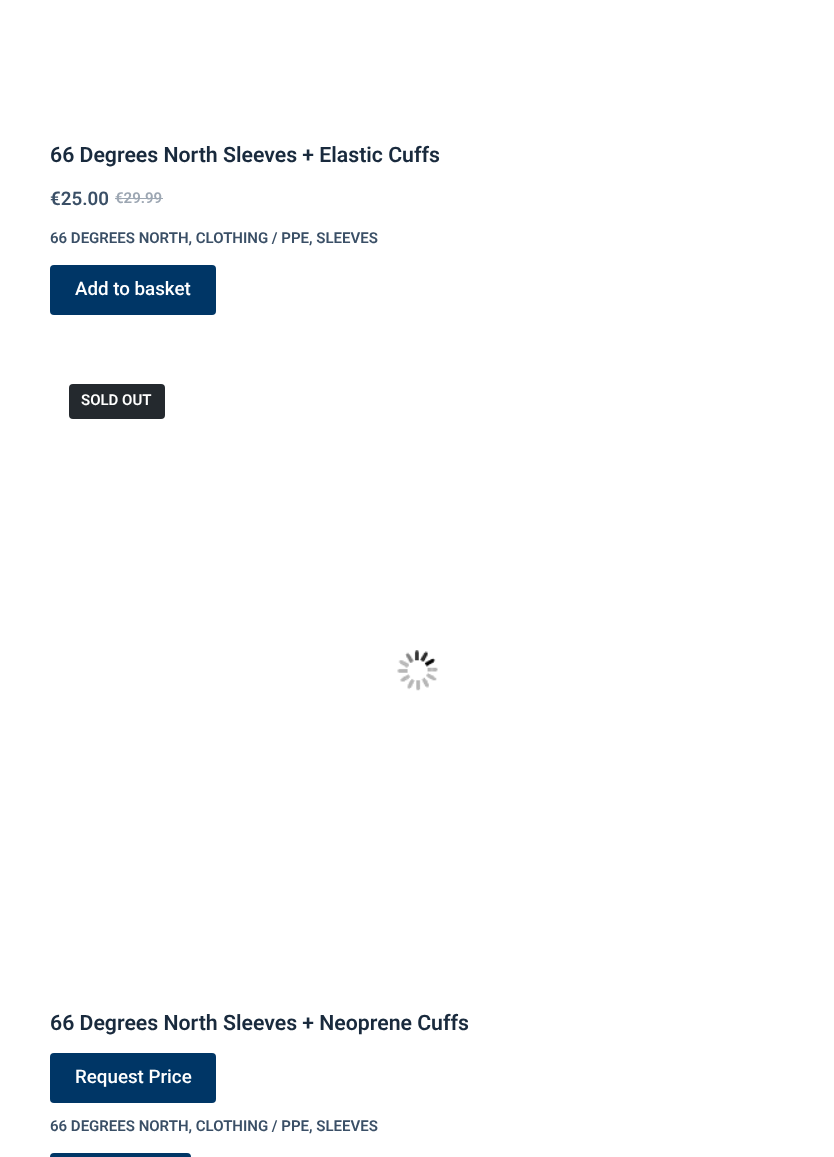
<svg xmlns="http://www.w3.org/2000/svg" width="834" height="1157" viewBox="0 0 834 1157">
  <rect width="100%" height="100%" fill="#fff"/>
  <path d="M115 198h48v1H115z" fill="#9da7b3"/>
  <rect x="50" y="265" width="166" height="50" rx="4" fill="#003666"/>
  <rect x="69" y="384" width="96" height="35" rx="4" fill="#24292e"/>
  <image x="397" y="650" width="41" height="41" href="img/1.png"/>
  <rect x="50" y="1053" width="166" height="50" rx="4" fill="#003666"/>
  <rect x="50" y="1153" width="141" height="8" rx="4" fill="#003666"/>
  <text x="50" y="162" font-family="Roboto" font-size="21.25" font-weight="600" fill="#192a3d">66 Degrees North Sleeves + Elastic Cuffs</text>
  <text x="50" y="205" font-family="Roboto" font-size="18.75" font-weight="600" fill="#3a4f66">€25.00</text>
  <text x="115" y="203" font-family="Roboto" font-size="15" font-weight="600" fill="#9da7b3">€29.99</text>
  <text x="50" y="243" font-family="Roboto" font-size="15" font-weight="600" fill="#3a4f66">66 DEGREES NORTH, CLOTHING / PPE, SLEEVES</text>
  <text x="75" y="295" font-family="Roboto" font-size="18.75" font-weight="500" fill="#fff">Add to basket</text>
  <text x="81" y="405" font-family="Roboto" font-size="15" font-weight="600" fill="#fff">SOLD OUT</text>
  <text x="50" y="1030" font-family="Roboto" font-size="21.25" font-weight="600" fill="#192a3d">66 Degrees North Sleeves + Neoprene Cuffs</text>
  <text x="75" y="1083" font-family="Roboto" font-size="18.75" font-weight="500" fill="#fff">Request Price</text>
  <text x="50" y="1131" font-family="Roboto" font-size="15" font-weight="600" fill="#3a4f66">66 DEGREES NORTH, CLOTHING / PPE, SLEEVES</text>
</svg>
